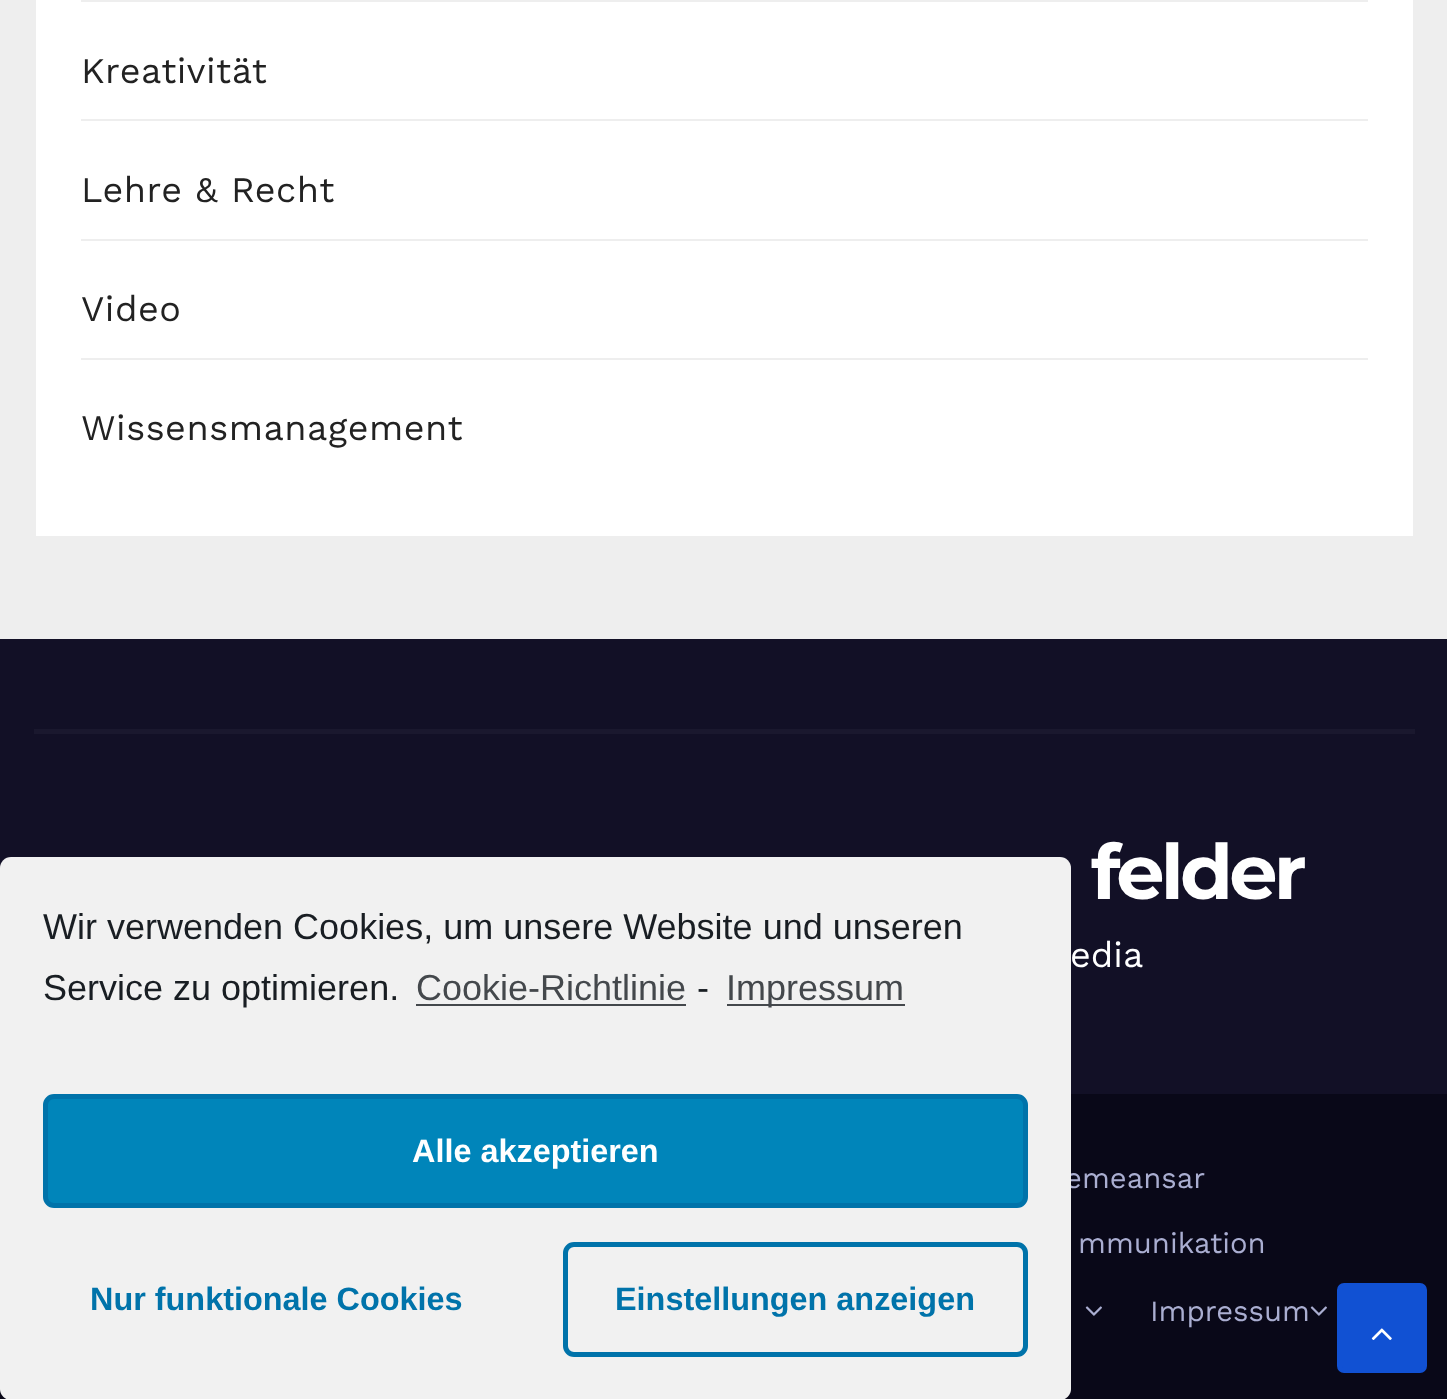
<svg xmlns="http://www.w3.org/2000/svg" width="1447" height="1399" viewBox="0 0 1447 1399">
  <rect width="100%" height="100%" fill="#eee"/>
  <path d="M36 0h1377v536H36z" fill="#fff"/>
  <path d="M81 0h1287v2H81z" fill="#eee"/>
  <path d="M81 119h1287v2H81z" fill="#eee"/>
  <path d="M81 239h1287v2H81z" fill="#eee"/>
  <path d="M81 358h1287v2H81z" fill="#eee"/>
  <path d="M0 639h1447v455H0z" fill="#121026"/>
  <path d="M34 729h1381v5H34z" fill="#1a182e"/>
  <path d="M0 1094h1447v305H0z" fill="#090818"/>
  <image x="1085" y="1306" width="17" height="10" href="img/1.png"/>
  <image x="1310" y="1306" width="17" height="10" href="img/1.png"/>
  <rect x="1339.5" y="1285.5" width="85" height="85" rx="4.5" fill="#1151d3" stroke="#1151d3" stroke-width="5"/>
  <image x="1371" y="1328" width="21" height="12" href="img/2.png"/>
  <g font-family="Work Sans" font-size="36" letter-spacing="0.5" fill="#222">
    <text x="81" y="83">Kreativität</text>
    <text x="81" y="202">Lehre &amp; Recht</text>
    <text x="81" y="321">Video</text>
    <text x="81" y="440">Wissensmanagement</text>
  </g>
  <text x="1091" y="899" font-family="Montserrat" font-size="76.5" font-weight="bold" letter-spacing="-3.75" fill="#fff">felder</text>
  <text x="1070" y="967" font-family="Work Sans" font-size="36" fill="#fff">edia</text>
  <g font-family="Work Sans" font-size="29.25" fill="#aaaed1">
    <text x="1065" y="1188">emeansar</text>
    <text x="1078" y="1253">mmunikation</text>
    <text x="1150" y="1321">Impressum</text>
  </g>
  <rect y="857" width="1071" height="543" rx="11" fill="#f1f1f1"/>
  <g font-family="Liberation Sans" font-size="36" fill="#191e23">
    <text x="43" y="939">Wir verwenden Cookies, um unsere Website und unseren</text>
    <text x="43" y="1000">Service zu optimieren.</text>
  </g>
  <text x="416" y="1000" font-family="Liberation Sans" font-size="36" fill="#44484c">Cookie-Richtlinie</text>
  <path d="M416 1004h270v2H416z" fill="#44484c"/>
  <text x="697" y="1000" font-family="Liberation Sans" font-size="36" fill="#191e23">-</text>
  <path d="M727 1004h178v2H727z" fill="#44484c"/>
  <text x="726" y="1000" font-family="Liberation Sans" font-size="36" fill="#44484c">Impressum</text>
  <rect x="45.5" y="1096.5" width="980" height="109" rx="8.5" fill="#0085ba" stroke="#0073aa" stroke-width="5"/>
  <text x="412" y="1162" font-family="Liberation Sans" font-size="32.4" font-weight="bold" fill="#fff">Alle akzeptieren</text>
  <text x="90" y="1310" font-family="Liberation Sans" font-size="32.4" font-weight="bold" fill="#0073aa">Nur funktionale Cookies</text>
  <rect x="565.5" y="1244.5" width="460" height="110" rx="8.5" fill="none" stroke="#0073aa" stroke-width="5"/>
  <text x="615" y="1310" font-family="Liberation Sans" font-size="32.4" font-weight="bold" fill="#0073aa">Einstellungen anzeigen</text>
</svg>
